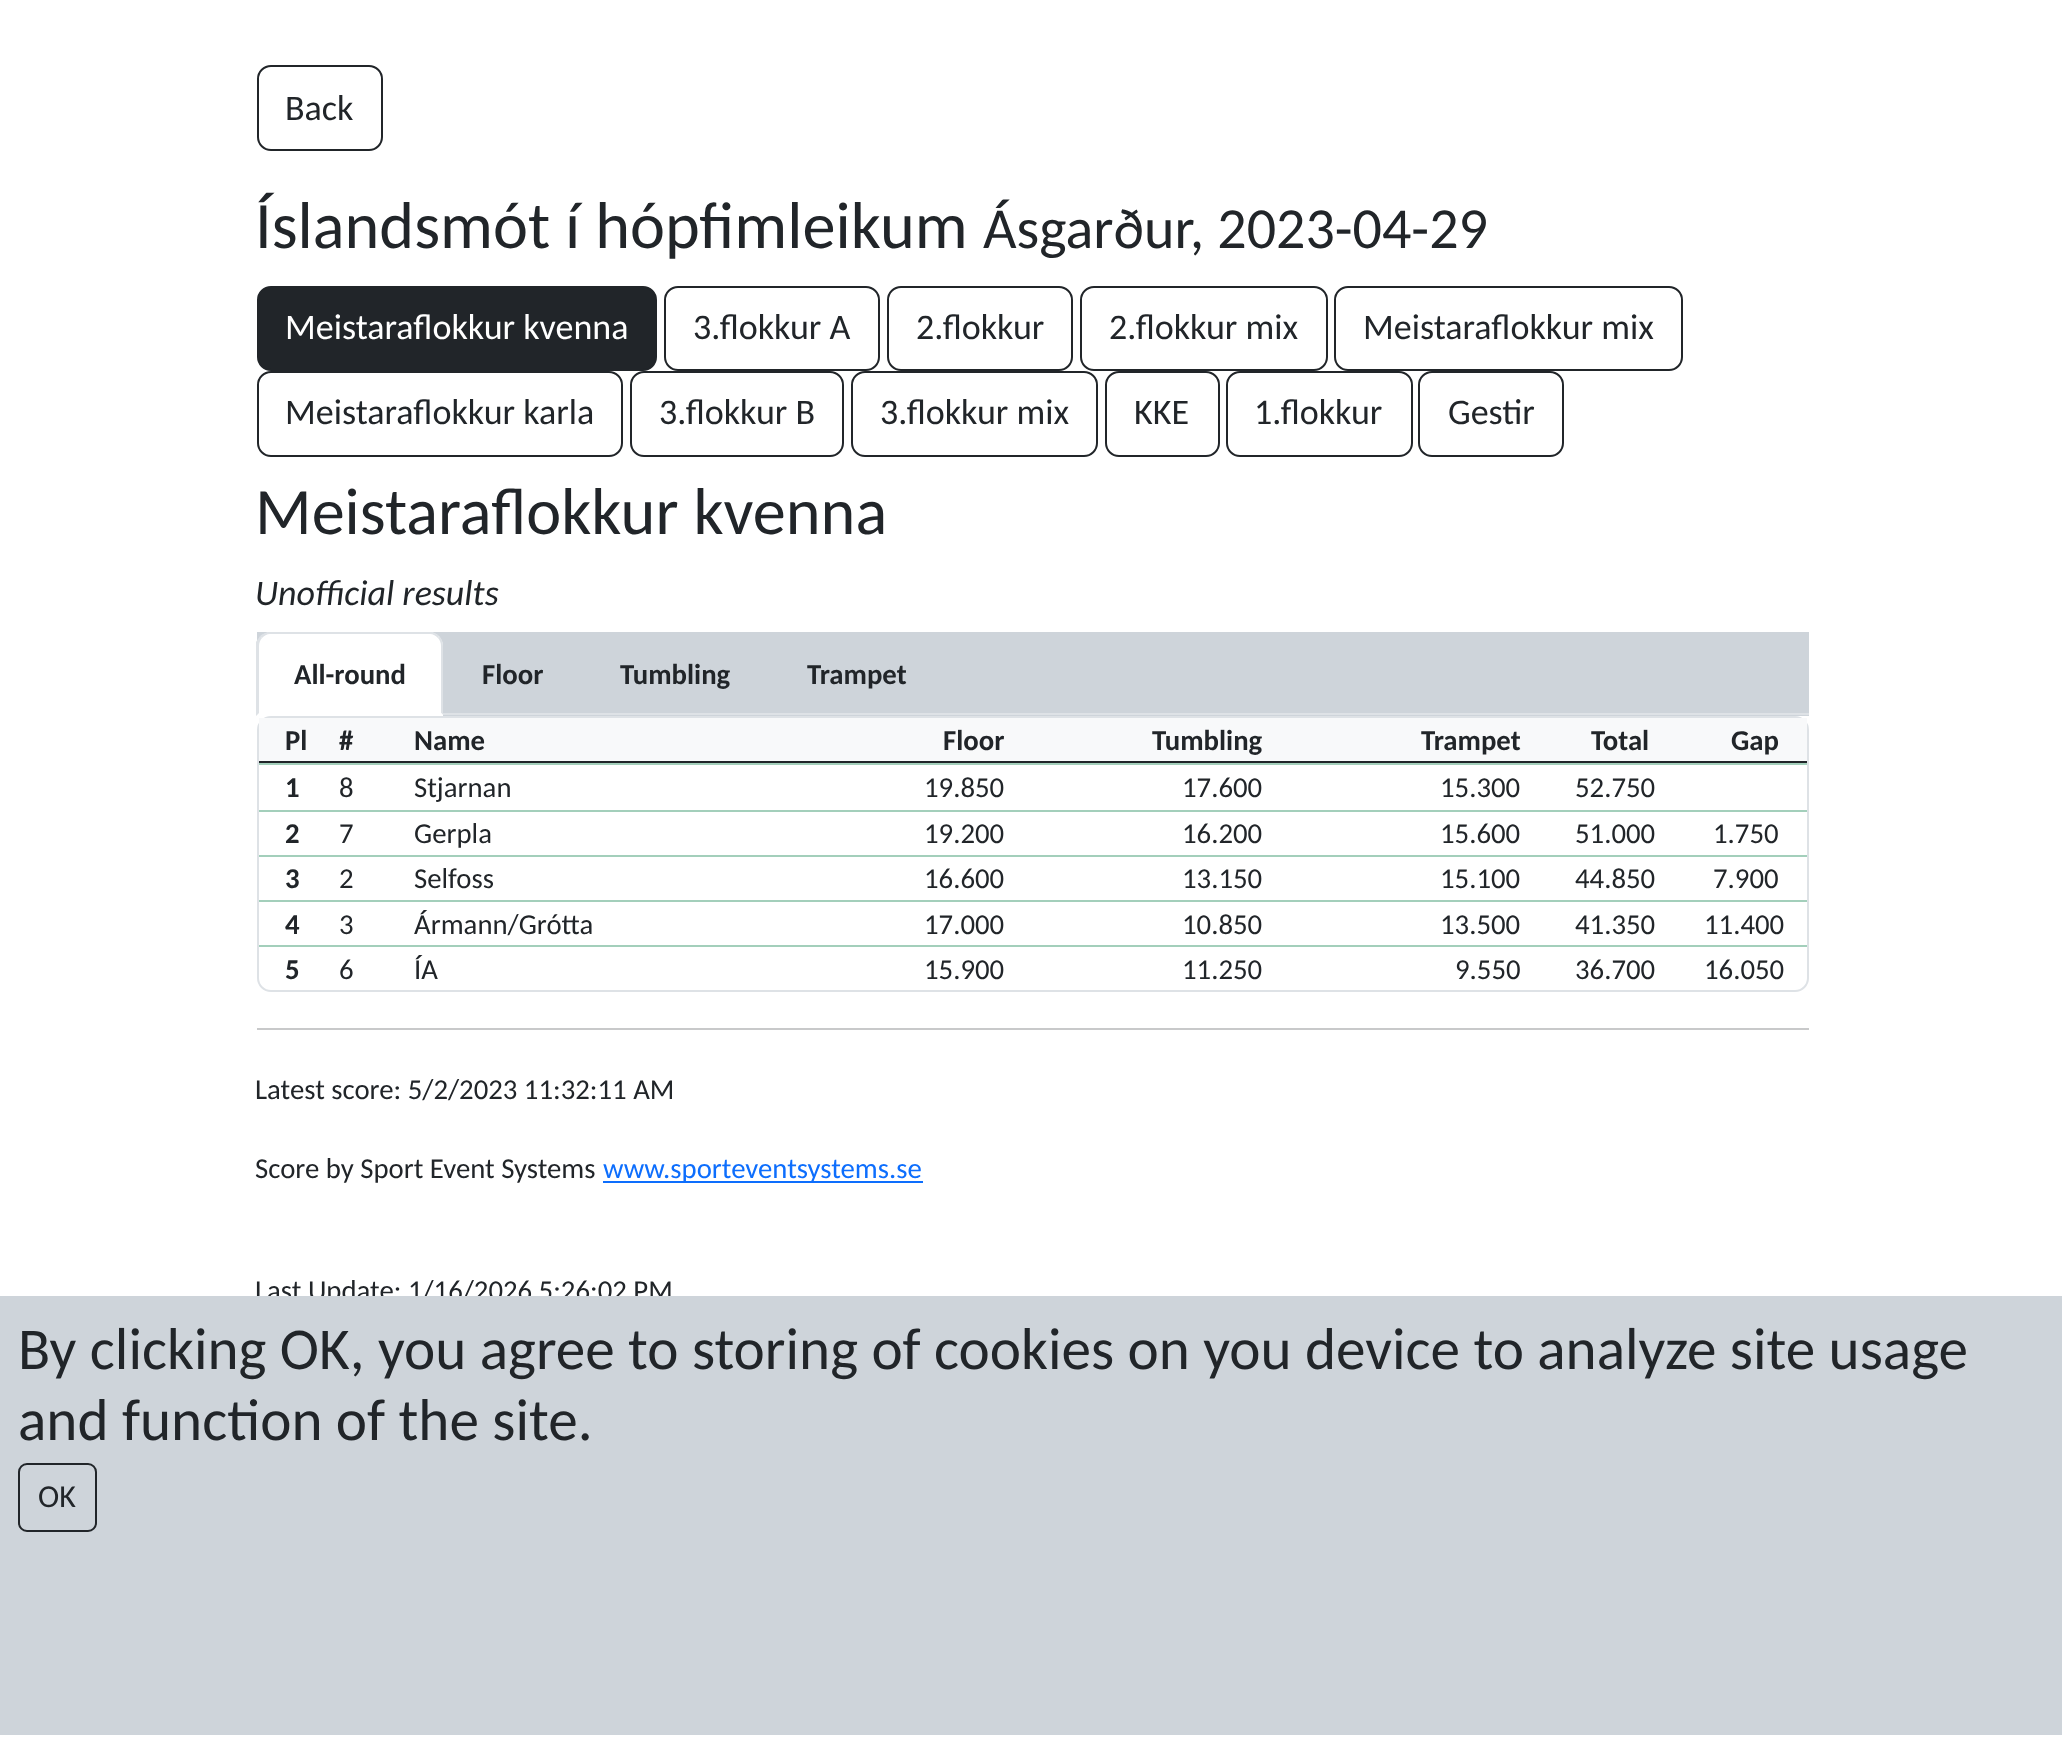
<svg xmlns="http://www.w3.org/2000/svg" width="2062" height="1752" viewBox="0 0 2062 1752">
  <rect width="100%" height="100%" fill="#fff"/>
  <rect x="258" y="66" width="124" height="84" rx="13" fill="none" stroke="#212529" stroke-width="2"/>
  <rect x="258" y="287" width="398" height="83" rx="13" fill="#212529" stroke="#212529" stroke-width="2"/>
  <rect x="665" y="287" width="214" height="83" rx="13" fill="none" stroke="#212529" stroke-width="2"/>
  <rect x="888" y="287" width="184" height="83" rx="13" fill="none" stroke="#212529" stroke-width="2"/>
  <rect x="1081" y="287" width="246" height="83" rx="13" fill="none" stroke="#212529" stroke-width="2"/>
  <rect x="1335" y="287" width="347" height="83" rx="13" fill="none" stroke="#212529" stroke-width="2"/>
  <rect x="258" y="372" width="364" height="84" rx="13" fill="none" stroke="#212529" stroke-width="2"/>
  <rect x="631" y="372" width="212" height="84" rx="13" fill="none" stroke="#212529" stroke-width="2"/>
  <rect x="852" y="372" width="245" height="84" rx="13" fill="none" stroke="#212529" stroke-width="2"/>
  <rect x="1106" y="372" width="113" height="84" rx="13" fill="none" stroke="#212529" stroke-width="2"/>
  <rect x="1227" y="372" width="185" height="84" rx="13" fill="none" stroke="#212529" stroke-width="2"/>
  <rect x="1419" y="372" width="144" height="84" rx="13" fill="none" stroke="#212529" stroke-width="2"/>
  <path d="M257 632h1552v84H257z" fill="#ced4da"/>
  <path d="M443 713h1366v2H443z" fill="#dee2e6"/>
  <path d="M271 632H429C436.5 632 443 638.5 443 646V716H257V646C257 638.5 263.5 632 271 632Z" fill="#fff"/>
  <path d="M270 634C267 634 264 636 262 638L260 636C262 634 265 633 268 632H432C435 633 437 634 439 636L438 638C436 636 433 634 430 634Z" fill="#dee2e6"/>
  <path d="M439 636C442 639 443 642 443 646V715L441 713V646C441 643 440 640 438 638Z" fill="#dee2e6"/>
  <path d="M443 715L256 716L259 713H441Z" fill="#fff"/>
  <path d="M256 716V642C257 640 259 638 260 636L262 638C260 640 259 643 259 646V713Z" fill="#dee2e6"/>
  <rect x="258" y="717" width="1550" height="274" rx="13" fill="none" stroke="#dee2e6" stroke-width="2"/>
  <path d="M259 718h1548v43H259z" fill="#f8f9fa"/>
  <path d="M259 761h1548v2H259z" fill="#212529"/>
  <path d="M259 763h1548v2H259z" fill="#a3cfbb"/>
  <path d="M259 810h1548v2H259z" fill="#a3cfbb"/>
  <path d="M259 855h1548v2H259z" fill="#a3cfbb"/>
  <path d="M259 900h1548v2H259z" fill="#a3cfbb"/>
  <path d="M259 945h1548v2H259z" fill="#a3cfbb"/>
  <path d="M257 1028h1552v2H257z" fill="#c8c9ca"/>
  <path d="M603 1181h320v2H603z" fill="#0d6efd"/>
  <text x="285" y="120" font-family="Carlito" font-size="36" fill="#212529">Back</text>
  <text x="255" y="248" font-family="Carlito" font-size="66.25" fill="#212529">Íslandsmót í hópfimleikum</text>
  <text x="983" y="248" font-family="Carlito" font-size="58" fill="#212529">Ásgarður, 2023-04-29</text>
  <text x="285" y="339" font-family="Carlito" font-size="36" fill="#fff">Meistaraflokkur kvenna</text>
  <g font-family="Carlito" font-size="36" fill="#212529">
    <text x="693" y="339">3.flokkur A</text>
    <text x="916" y="339">2.flokkur</text>
    <text x="1109" y="339">2.flokkur mix</text>
    <text x="1363" y="339">Meistaraflokkur mix</text>
    <text x="285" y="424">Meistaraflokkur karla</text>
    <text x="659" y="424">3.flokkur B</text>
    <text x="880" y="424">3.flokkur mix</text>
    <text x="1134" y="424">KKE</text>
    <text x="1254" y="424">1.flokkur</text>
    <text x="1448" y="424">Gestir</text>
  </g>
  <text x="255" y="534" font-family="Carlito" font-size="66.25" fill="#212529">Meistaraflokkur kvenna</text>
  <text x="255" y="605" font-family="Carlito" font-size="36" font-style="italic" fill="#212529">Unofficial results</text>
  <g font-family="Carlito" font-size="28.75" font-weight="bold" fill="#212529">
    <text x="294" y="684">All-round</text>
    <text x="482" y="684">Floor</text>
    <text x="620" y="684">Tumbling</text>
    <text x="807" y="684">Trampet</text>
    <text x="285" y="750">Pl</text>
    <text x="339" y="750">#</text>
    <text x="414" y="750">Name</text>
    <text x="943" y="750">Floor</text>
    <text x="1152" y="750">Tumbling</text>
    <text x="1421" y="750">Trampet</text>
    <text x="1591" y="750">Total</text>
    <text x="1731" y="750">Gap</text>
    <text x="285" y="797">1</text>
  </g>
  <g font-family="Carlito" font-size="28.75" fill="#212529">
    <text x="339" y="797">8</text>
    <text x="414" y="797">Stjarnan</text>
    <text x="924" y="797">19.850</text>
    <text x="1182" y="797">17.600</text>
    <text x="1440" y="797">15.300</text>
    <text x="1575" y="797">52.750</text>
  </g>
  <text x="285" y="843" font-family="Carlito" font-size="28.75" font-weight="bold" fill="#212529">2</text>
  <g font-family="Carlito" font-size="28.75" fill="#212529">
    <text x="339" y="843">7</text>
    <text x="414" y="843">Gerpla</text>
    <text x="924" y="843">19.200</text>
    <text x="1182" y="843">16.200</text>
    <text x="1440" y="843">15.600</text>
    <text x="1575" y="843">51.000</text>
    <text x="1713" y="843">1.750</text>
  </g>
  <text x="285" y="888" font-family="Carlito" font-size="28.75" font-weight="bold" fill="#212529">3</text>
  <g font-family="Carlito" font-size="28.75" fill="#212529">
    <text x="339" y="888">2</text>
    <text x="414" y="888">Selfoss</text>
    <text x="924" y="888">16.600</text>
    <text x="1182" y="888">13.150</text>
    <text x="1440" y="888">15.100</text>
    <text x="1575" y="888">44.850</text>
    <text x="1713" y="888">7.900</text>
  </g>
  <text x="285" y="934" font-family="Carlito" font-size="28.75" font-weight="bold" fill="#212529">4</text>
  <g font-family="Carlito" font-size="28.75" fill="#212529">
    <text x="339" y="934">3</text>
    <text x="414" y="934">Ármann/Grótta</text>
    <text x="924" y="934">17.000</text>
    <text x="1182" y="934">10.850</text>
    <text x="1440" y="934">13.500</text>
    <text x="1575" y="934">41.350</text>
    <text x="1704" y="934">11.400</text>
  </g>
  <text x="285" y="979" font-family="Carlito" font-size="28.75" font-weight="bold" fill="#212529">5</text>
  <g font-family="Carlito" font-size="28.75" fill="#212529">
    <text x="339" y="979">6</text>
    <text x="414" y="979">ÍA</text>
    <text x="924" y="979">15.900</text>
    <text x="1182" y="979">11.250</text>
    <text x="1455" y="979">9.550</text>
    <text x="1575" y="979">36.700</text>
    <text x="1704" y="979">16.050</text>
    <text x="255" y="1099">Latest score: 5/2/2023 11:32:11 AM</text>
    <text x="255" y="1178">Score by Sport Event Systems</text>
  </g>
  <text x="603" y="1178" font-family="Carlito" font-size="28.75" fill="#0d6efd">www.sporteventsystems.se</text>
  <text x="255" y="1300" font-family="Carlito" font-size="28.75" fill="#212529">Last Update: 1/16/2026 5:26:02 PM</text>
  <path d="M0 1296h2062v439H0z" fill="#ced4da"/>
  <g font-family="Carlito" font-size="59.2" fill="#212529">
    <text x="18" y="1369">By clicking OK, you agree to storing of cookies on you device to analyze site usage</text>
    <text x="18" y="1440">and function of the site.</text>
  </g>
  <rect x="19" y="1464" width="77" height="67" rx="8" fill="none" stroke="#212529" stroke-width="2"/>
  <text x="38" y="1507" font-family="Carlito" font-size="32" fill="#212529">OK</text>
</svg>
